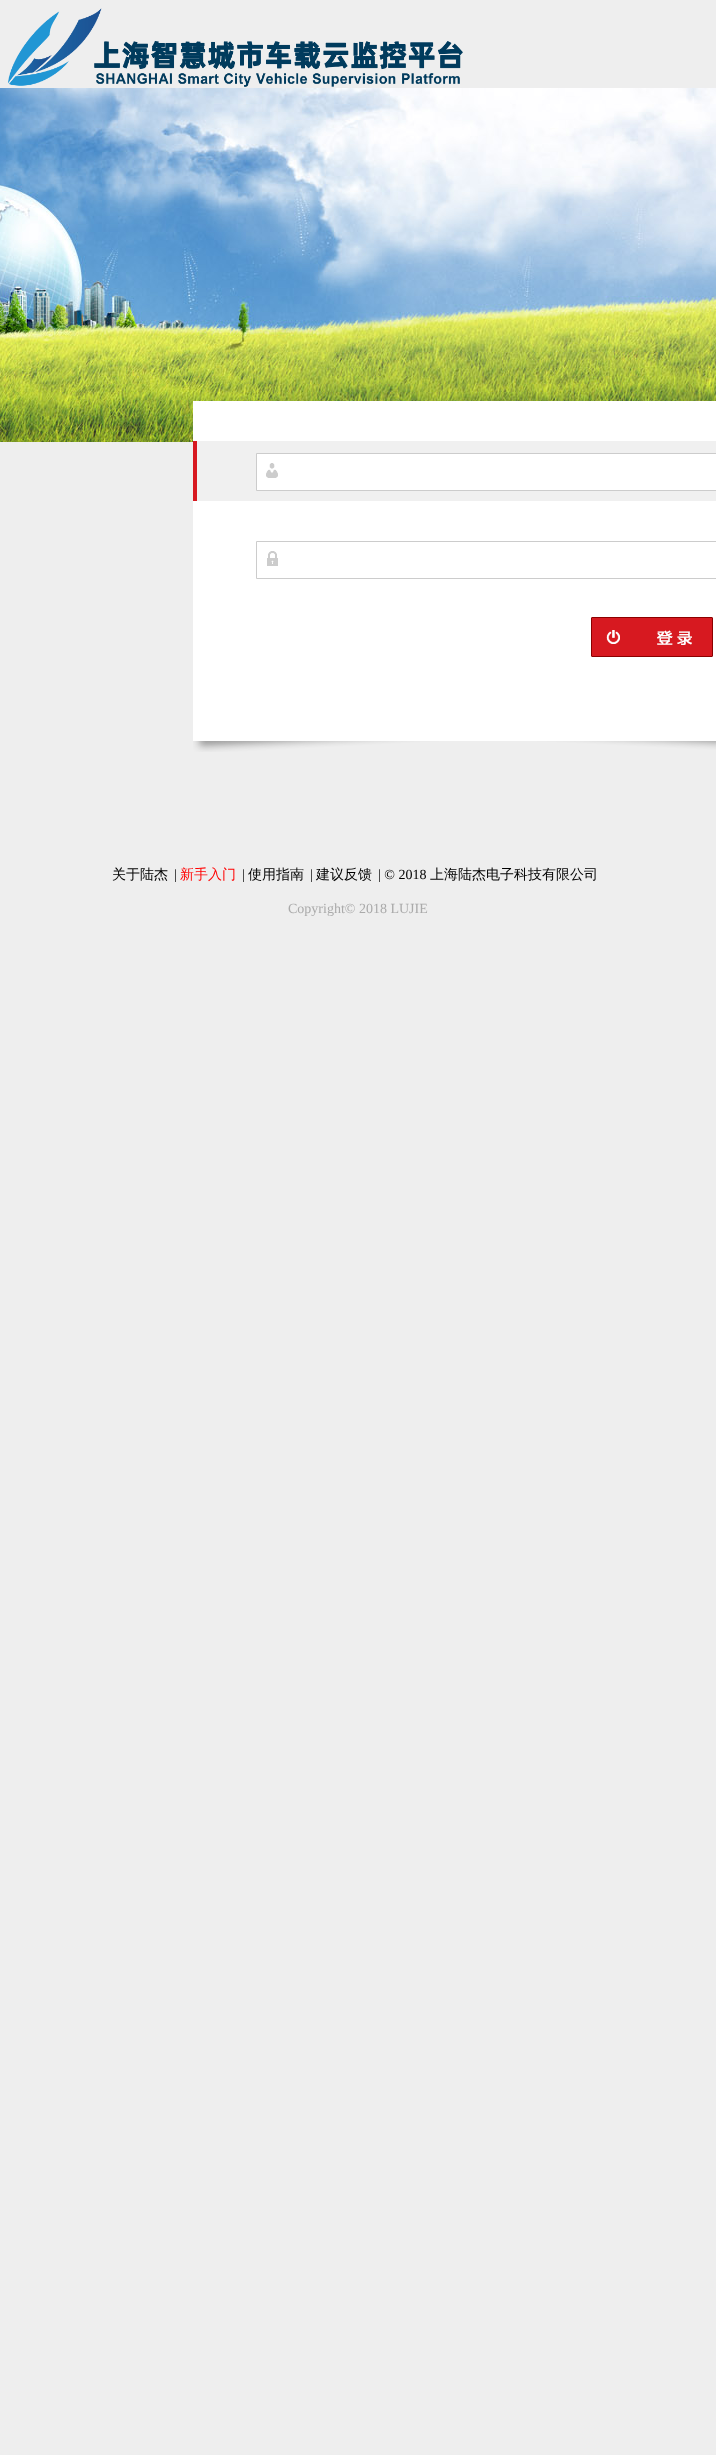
<svg xmlns="http://www.w3.org/2000/svg" width="716" height="2455" viewBox="0 0 716 2455">
  <rect width="100%" height="100%" fill="#eee"/>
  <image x="0" y="88" width="716" height="354" href="img/1.png"/>
  <image x="8" y="8" width="455" height="79" href="img/2.png"/>
  <path d="M193 401h523v340H193z" fill="#fff"/>
  <path d="M197 441h519v60H197z" fill="#f0f0f0"/>
  <path d="M193 441h4v60H193z" fill="#d71920"/>
  <path d="M257 454h459v36H257z" fill="#fff"/>
  <image x="266" y="463" width="12" height="15" href="img/3.png"/>
  <path d="M256.5 453.5h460v37H256.5z" fill="none" stroke="#ccc"/>
  <image x="267" y="551" width="11" height="15" href="img/4.png"/>
  <path d="M256.5 541.5h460v37H256.5z" fill="none" stroke="#ccc"/>
  <image x="591" y="617" width="122" height="40" href="img/5.png"/>
  <image x="193" y="741" width="523" height="11" href="img/6.png"/>
  <text x="112" y="879" font-family="WenQuanYi Zen Hei" font-size="14" font-weight="500" fill="#000">关于陆杰</text>
  <text x="174" y="879" font-family="Liberation Serif" font-size="14" fill="#000">|</text>
  <text x="180" y="879" font-family="WenQuanYi Zen Hei" font-size="14" font-weight="500" fill="#f00">新手入门</text>
  <text x="242" y="879" font-family="Liberation Serif" font-size="14" fill="#000">|</text>
  <text x="248" y="879" font-family="WenQuanYi Zen Hei" font-size="14" font-weight="500" fill="#000">使用指南</text>
  <text x="310" y="879" font-family="Liberation Serif" font-size="14" fill="#000">|</text>
  <text x="316" y="879" font-family="WenQuanYi Zen Hei" font-size="14" font-weight="500" fill="#000">建议反馈</text>
  <text x="378" y="879" font-family="Liberation Serif" font-size="14" fill="#000">| © 2018</text>
  <text x="430" y="879" font-family="WenQuanYi Zen Hei" font-size="14" font-weight="500" fill="#000">上海陆杰电子科技有限公司</text>
  <text x="288" y="913" font-family="Liberation Serif" font-size="14" fill="#aaa">Copyright© 2018 LUJIE</text>
</svg>
